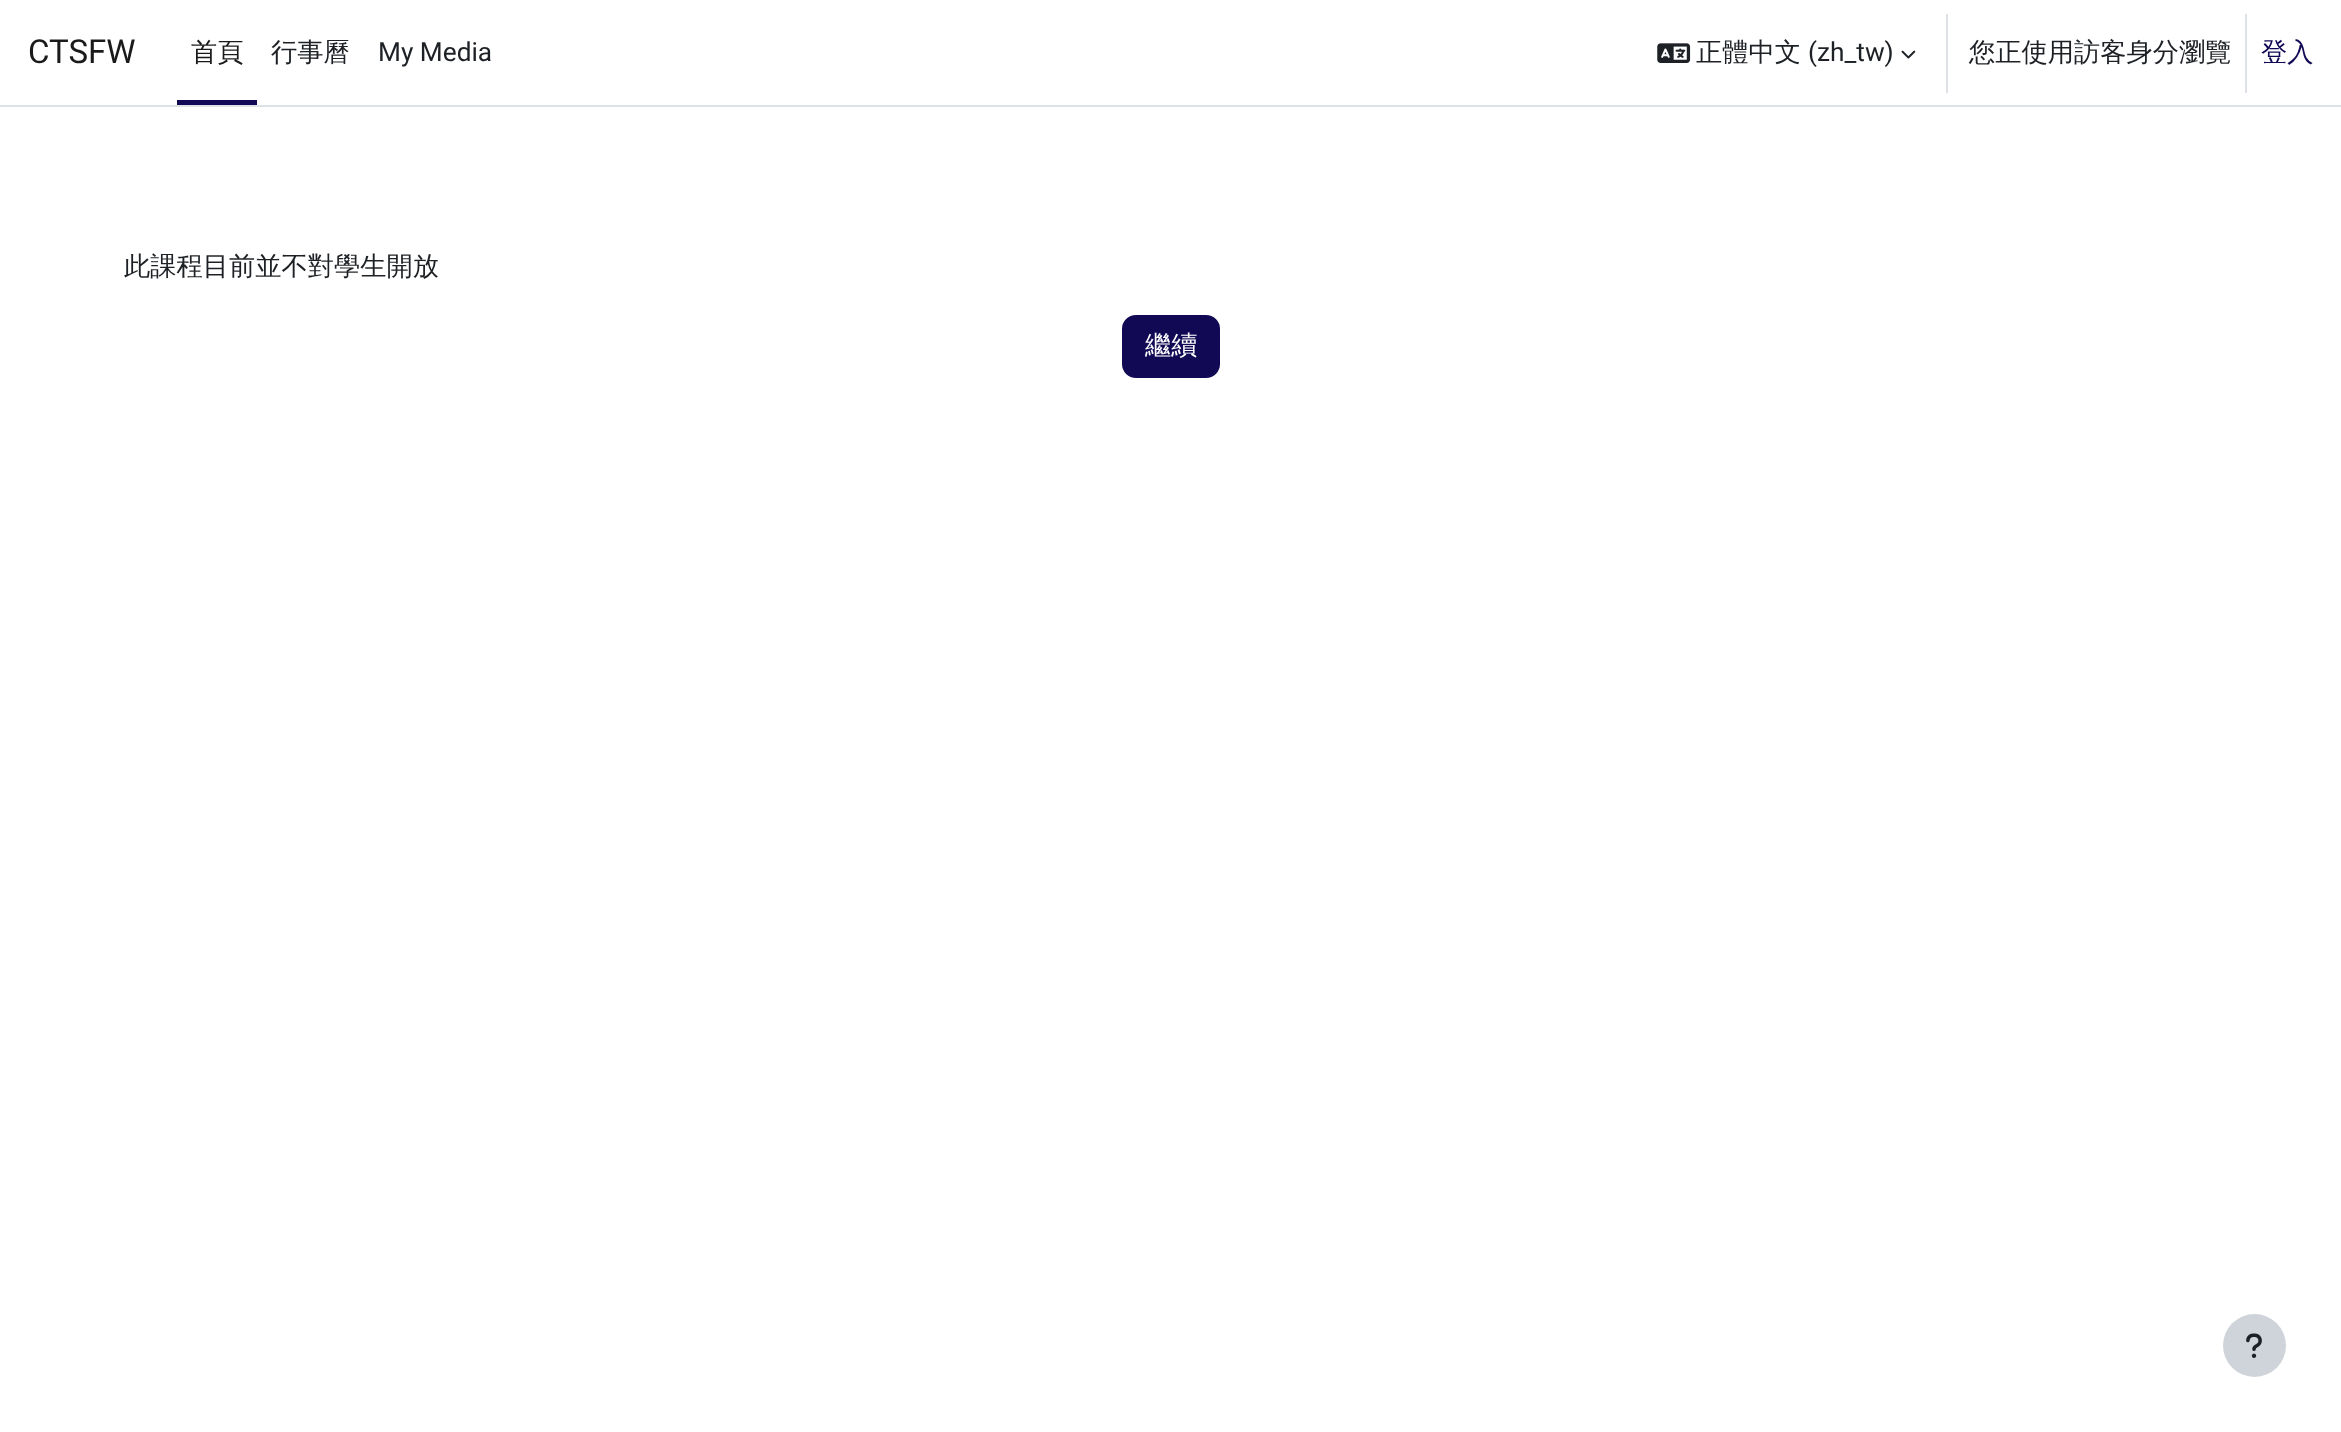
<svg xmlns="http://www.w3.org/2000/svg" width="2341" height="1432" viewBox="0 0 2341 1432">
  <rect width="100%" height="100%" fill="#fff"/>
  <path d="M0 105h2341v2H0z" fill="#dee2e6"/>
  <path d="M177 100h80v5H177z" fill="#110954"/>
  <image x="1657" y="43" width="34" height="20" href="img/1.png"/>
  <image x="1901" y="50" width="15" height="9" href="img/2.png"/>
  <path d="M1946 14h2v79H1946z" fill="#dee2e6"/>
  <path d="M2245 14h2v79H2245z" fill="#dee2e6"/>
  <rect x="1123" y="316" width="96" height="61" rx="13" fill="#110954" stroke="#110954" stroke-width="2"/>
  <circle cx="2254.5" cy="1345.5" r="31.5" fill="#ced4da"/>
  <image x="2246" y="1333" width="16" height="25" href="img/3.png"/>
  <text x="28" y="63" font-family="Roboto" font-size="33" fill="#1a1a1a">CTSFW</text>
  <text x="191" y="61" font-family="WenQuanYi Zen Hei" font-size="26.25" font-weight="500" fill="#1a1a1a">首頁</text>
  <text x="271" y="61" font-family="WenQuanYi Zen Hei" font-size="26.25" font-weight="500" fill="#1d2125">行事曆</text>
  <text x="378" y="61" font-family="Roboto" font-size="26.25" fill="#1d2125">My Media</text>
  <text x="1696" y="61" font-family="WenQuanYi Zen Hei" font-size="26.25" font-weight="500" fill="#1d2125">正體中文</text>
  <text x="1808" y="61" font-family="Roboto" font-size="26.25" fill="#1d2125">(zh_tw)</text>
  <text x="1969" y="61" font-family="WenQuanYi Zen Hei" font-size="26.25" font-weight="500" fill="#1d2125">您正使用訪客身分瀏覽</text>
  <text x="2261" y="61" font-family="WenQuanYi Zen Hei" font-size="26.25" font-weight="500" fill="#110954">登入</text>
  <text x="124" y="275" font-family="WenQuanYi Zen Hei" font-size="26.25" font-weight="500" fill="#1d2125">此課程目前並不對學生開放</text>
  <text x="1145" y="354" font-family="WenQuanYi Zen Hei" font-size="26.25" font-weight="500" fill="#fff">繼續</text>
</svg>
